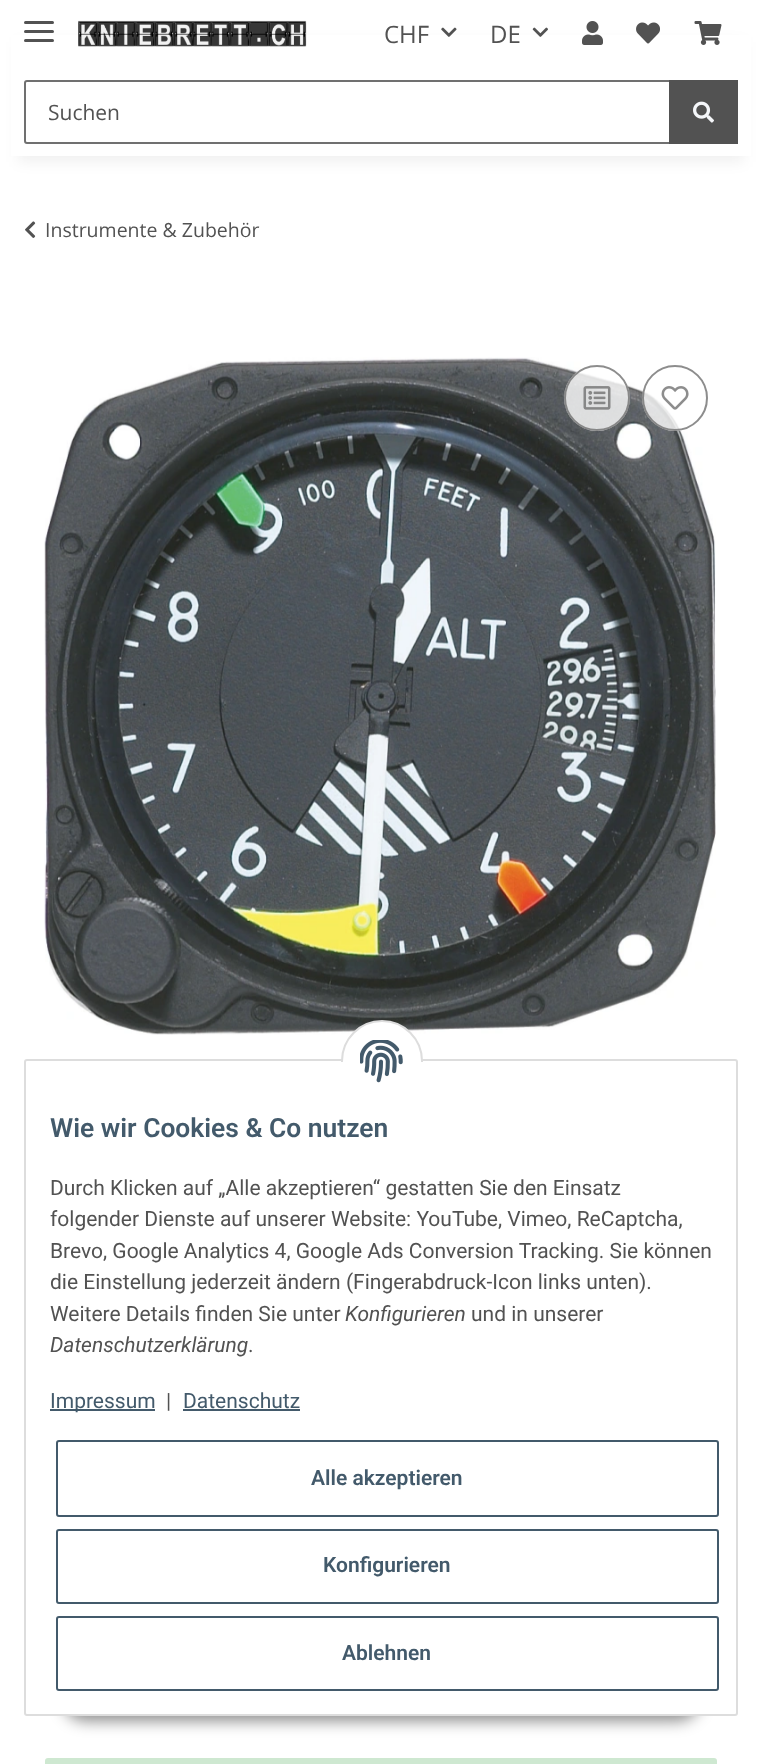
<svg xmlns="http://www.w3.org/2000/svg" width="762" height="1764" viewBox="0 0 762 1764">
  <rect width="100%" height="100%" fill="#fff"/>
  <path d="M18 42h726v120H18z" fill="#0000000f" filter="blur(7px)"/>
  <path d="M11 35h740v121H11z" fill="#fff"/>
  <rect x="24" y="30" width="30" height="3" rx="1.5" fill="#525252"/>
  <rect x="24" y="21" width="30" height="3" rx="1.5" fill="#525252"/>
  <rect x="24" y="39" width="30" height="3" rx="1.5" fill="#525252"/>
  <image x="78" y="20" width="229" height="27" href="img/1.png"/>
  <image x="441" y="27" width="16" height="10" href="img/2.png"/>
  <image x="532" y="27" width="16" height="10" href="img/3.png"/>
  <image x="582" y="21" width="21" height="24" href="img/4.png"/>
  <image x="636" y="22" width="24" height="22" href="img/5.png"/>
  <image x="694" y="21" width="28" height="24" href="img/6.png"/>
  <path d="M27 81H670V143H27C26 143 25 142 25 141V83C25 82 26 81 27 81Z" fill="none" stroke="#707070" stroke-width="2"/>
  <path d="M669 80h69v64H669z" fill="#525252"/>
  <image x="693" y="101" width="21" height="22" href="img/7.png"/>
  <image x="25" y="221" width="11" height="17" href="img/8.png"/>
  <image x="44" y="357" width="672" height="678" href="img/9.png"/>
  <circle cx="597" cy="398" r="33" fill="#ffffffcc"/>
  <circle cx="597" cy="398" r="32" fill="none" stroke="#707070cc" stroke-width="2"/>
  <image x="583" y="386" width="28" height="24" href="img/10.png"/>
  <circle cx="675" cy="398" r="33" fill="#ffffffcc"/>
  <circle cx="675" cy="398" r="32" fill="none" stroke="#707070cc" stroke-width="2"/>
  <image x="661" y="386" width="28" height="24" href="img/11.png"/>
  <rect x="46" y="1759" width="670" height="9" rx="2" fill="#cee8d1" stroke="#cee8d1" stroke-width="2"/>
  <rect x="62" y="1673" width="639" height="48" rx="24" fill="#00000073" filter="blur(7.5px)"/>
  <rect x="25" y="1060" width="712" height="655" rx="2" fill="#fff" stroke="#ddd" stroke-width="2"/>
  <rect x="342" y="1021" width="80" height="81" rx="40" fill="#fff" stroke="#ddd" stroke-width="2"/>
  <path d="M341 1062h82v41H341z" fill="#fff"/>
  <image x="360" y="1040" width="43" height="43" href="img/12.png"/>
  <path d="M50 1409h105v2H50z" fill="#435a6b"/>
  <path d="M183 1409h117v2H183z" fill="#435a6b"/>
  <rect x="57" y="1441" width="661" height="75" rx="2" fill="none" stroke="#435a6b" stroke-width="2"/>
  <rect x="57" y="1530" width="661" height="73" rx="2" fill="none" stroke="#435a6b" stroke-width="2"/>
  <rect x="57" y="1617" width="661" height="73" rx="2" fill="none" stroke="#435a6b" stroke-width="2"/>
  <g font-family="Open Sans" font-size="24" fill="#525252">
    <text x="384" y="43">CHF</text>
    <text x="490" y="43">DE</text>
  </g>
  <text x="48" y="120" font-family="Open Sans" font-size="21" fill="#525252">Suchen</text>
  <text x="45" y="237" font-family="Open Sans" font-size="19.5" fill="#525252">Instrumente &amp; Zubehör</text>
  <text x="50" y="1137" font-family="Roboto" font-size="26.4" font-weight="600" fill="#435a6b">Wie wir Cookies &amp; Co nutzen</text>
  <g font-family="Roboto" font-size="21" fill="#525252">
    <text x="50" y="1195">Durch Klicken auf „Alle akzeptieren“ gestatten Sie den Einsatz</text>
    <text x="50" y="1226">folgender Dienste auf unserer Website: YouTube, Vimeo, ReCaptcha,</text>
    <text x="50" y="1258">Brevo, Google Analytics 4, Google Ads Conversion Tracking. Sie können</text>
    <text x="50" y="1289">die Einstellung jederzeit ändern (Fingerabdruck-Icon links unten).</text>
    <text x="50" y="1321">Weitere Details finden Sie unter</text>
  </g>
  <text x="345" y="1321" font-family="Roboto" font-size="21" font-style="italic" fill="#525252">Konfigurieren</text>
  <text x="471" y="1321" font-family="Roboto" font-size="21" fill="#525252">und in unserer</text>
  <text x="50" y="1352" font-family="Roboto" font-size="21" font-style="italic" fill="#525252">Datenschutzerklärung</text>
  <text x="248" y="1352" font-family="Roboto" font-size="21" fill="#525252">.</text>
  <text x="50" y="1408" font-family="Roboto" font-size="21" fill="#435a6b">Impressum</text>
  <text x="166" y="1408" font-family="Roboto" font-size="21" fill="#525252">|</text>
  <text x="183" y="1408" font-family="Roboto" font-size="21" fill="#435a6b">Datenschutz</text>
  <g font-family="Roboto" font-size="21" font-weight="600" fill="#435a6b">
    <text x="311" y="1485">Alle akzeptieren</text>
    <text x="323" y="1572">Konfigurieren</text>
    <text x="342" y="1660">Ablehnen</text>
  </g>
</svg>
